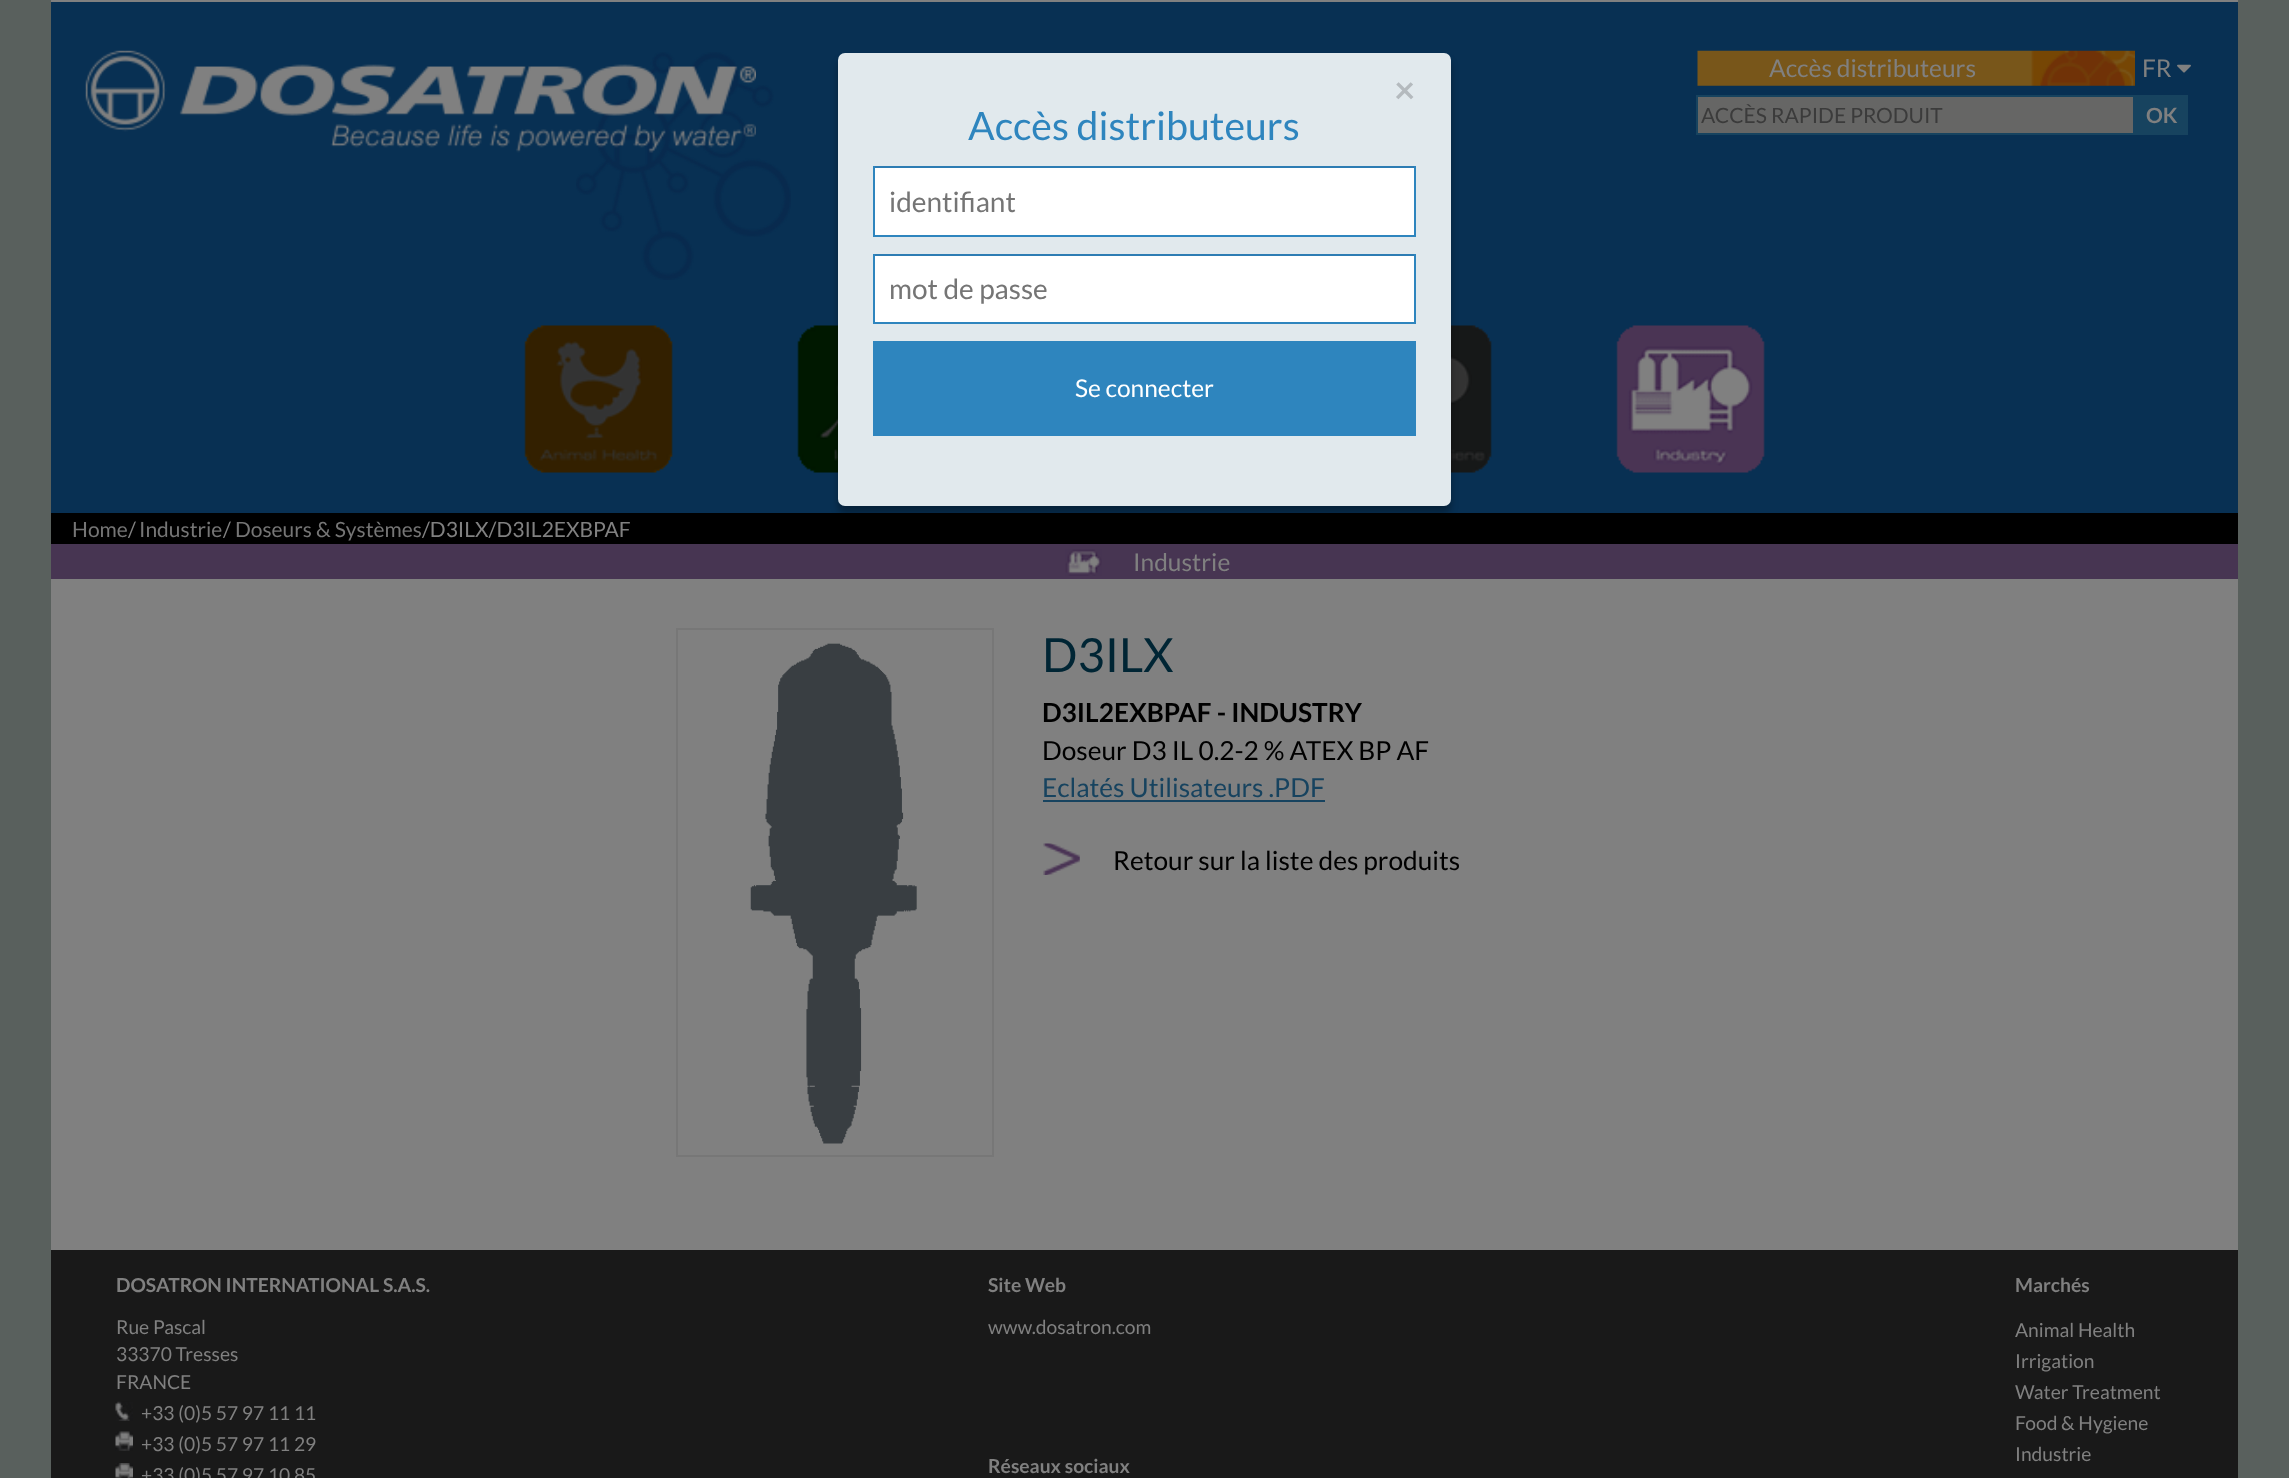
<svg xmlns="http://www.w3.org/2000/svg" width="2289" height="1478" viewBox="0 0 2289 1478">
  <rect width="100%" height="100%" fill="#59605d"/>
  <path d="M51 579h2187v671H51z" fill="#808080"/>
  <path d="M51 2h2187v511H51z" fill="#083053"/>
  <image x="576" y="52" width="215" height="228" href="img/1.png"/>
  <path d="M51 0h2187v2H51z" fill="#808080"/>
  <image x="85" y="50" width="671" height="103" href="img/2.png"/>
  <image x="1697" y="50" width="438" height="36" href="img/3.png"/>
  <image x="2177" y="64" width="14" height="9" href="img/4.png"/>
  <path d="M1697 96h437v38H1697z" fill="#666665" stroke="#17435f" stroke-width="2"/>
  <path d="M2135 95h53v40H2135z" fill="#17435f"/>
  <image x="524" y="325" width="149" height="148" href="img/5.png"/>
  <image x="797" y="325" width="41" height="148" href="img/6.png"/>
  <image x="1451" y="325" width="41" height="148" href="img/7.png"/>
  <image x="1616" y="325" width="149" height="148" href="img/8.png"/>
  <path d="M51 513h2187v31H51z" fill="#000"/>
  <path d="M51 544h2187v35H51z" fill="#473552"/>
  <image x="1065" y="549" width="37" height="27" href="img/9.png"/>
  <path d="M677 629h316v527H677z" fill="none" stroke="#777" stroke-width="2"/>
  <image x="750" y="643" width="167" height="501" href="img/10.png"/>
  <path d="M1043 800h282v2H1043z" fill="#17435f"/>
  <image x="1043" y="843" width="37" height="32" href="img/11.png"/>
  <path d="M51 1250h2187v228H51z" fill="#191919"/>
  <image x="115" y="1401" width="18" height="20" href="img/12.png"/>
  <image x="115" y="1431" width="18" height="20" href="img/13.png"/>
  <image x="115" y="1463" width="18" height="15" href="img/14.png"/>
  <rect x="838" y="60" width="613" height="453" rx="7" fill="#0000004d" filter="blur(3.5px)"/>
  <rect x="838" y="53" width="613" height="453" rx="7" fill="#e1e9ed"/>
  <path d="M875 168h539v67H875z" fill="#fff"/>
  <path d="M873 166h543v2H873z" fill="#2d7cb3"/>
  <path d="M1414 166h2v70H1414z" fill="#2e85be"/>
  <path d="M873 235h543v2H873z" fill="#2e85be"/>
  <path d="M873 166h2v70H873z" fill="#2e85be"/>
  <path d="M875 256h539v66H875z" fill="#fff"/>
  <path d="M873 254h543v2H873z" fill="#2d7cb3"/>
  <path d="M1414 254h2v70H1414z" fill="#2e85be"/>
  <path d="M873 322h543v2H873z" fill="#2e85be"/>
  <path d="M873 254h2v70H873z" fill="#2e85be"/>
  <path d="M873 341h543v95H873z" fill="#2e85be"/>
  <g font-family="Lato" font-size="24.5" fill="#808080">
    <text x="1769" y="77">Accès distributeurs</text>
    <text x="2142" y="77">FR</text>
  </g>
  <text x="1701" y="123" font-family="Lato" font-size="21" fill="#3b3b3b">ACCÈS RAPIDE PRODUIT</text>
  <text x="2146" y="123" font-family="Lato" font-size="21" font-weight="bold" fill="#808080">OK</text>
  <text x="72" y="537" font-family="Lato" font-size="21" fill="#757575">Home</text>
  <text x="128" y="537" font-family="Lato" font-size="21" fill="#808080">/</text>
  <text x="139" y="537" font-family="Lato" font-size="21" fill="#757575">Industrie</text>
  <text x="223" y="537" font-family="Lato" font-size="21" fill="#808080">/</text>
  <text x="235" y="537" font-family="Lato" font-size="21" fill="#757575">Doseurs &amp; Systèmes</text>
  <text x="422" y="537" font-family="Lato" font-size="21" fill="#808080">/D3ILX/D3IL2EXBPAF</text>
  <text x="1133" y="571" font-family="Lato" font-size="24.5" fill="#808080">Industrie</text>
  <text x="1042" y="672" font-family="Lato" font-size="47" fill="#002534">D3ILX</text>
  <text x="1042" y="722" font-family="Lato" font-size="26.25" font-weight="bold" fill="#000">D3IL2EXBPAF - INDUSTRY</text>
  <text x="1042" y="760" font-family="Lato" font-size="26.25" fill="#000">Doseur D3 IL 0.2-2 % ATEX BP AF</text>
  <text x="1042" y="797" font-family="Lato" font-size="26.25" fill="#17435f">Eclatés Utilisateurs .PDF</text>
  <text x="1113" y="870" font-family="Lato" font-size="26.25" fill="#000">Retour sur la liste des produits</text>
  <text x="116" y="1292" font-family="Lato" font-size="19.25" font-weight="bold" fill="#808080">DOSATRON INTERNATIONAL S.A.S.</text>
  <g font-family="Lato" font-size="19.25" fill="#808080">
    <text x="116" y="1334">Rue Pascal</text>
    <text x="116" y="1361">33370 Tresses</text>
    <text x="116" y="1389">FRANCE</text>
    <text x="141" y="1420">+33 (0)5 57 97 11 11</text>
    <text x="141" y="1451">+33 (0)5 57 97 11 29</text>
    <text x="141" y="1482">+33 (0)5 57 97 10 85</text>
  </g>
  <text x="988" y="1292" font-family="Lato" font-size="19.25" font-weight="bold" fill="#808080">Site Web</text>
  <text x="988" y="1334" font-family="Lato" font-size="19.25" fill="#808080">www.dosatron.com</text>
  <g font-family="Lato" font-size="19.25" font-weight="bold" fill="#808080">
    <text x="988" y="1473">Réseaux sociaux</text>
    <text x="2015" y="1292">Marchés</text>
  </g>
  <g font-family="Lato" font-size="19.25" fill="#808080">
    <text x="2015" y="1337">Animal Health</text>
    <text x="2015" y="1368">Irrigation</text>
    <text x="2015" y="1399">Water Treatment</text>
    <text x="2015" y="1430">Food &amp; Hygiene</text>
    <text x="2015" y="1461">Industrie</text>
  </g>
  <text x="1394" y="103" font-family="Lato" font-size="37" font-weight="bold" fill="#b4babe">×</text>
  <text x="968" y="140" font-family="Lato" font-size="39.25" fill="#2e85be">Accès distributeurs</text>
  <g font-family="Lato" font-size="28" fill="#757575">
    <text x="889" y="212">identifiant</text>
    <text x="889" y="299">mot de passe</text>
  </g>
  <text x="1075" y="397" font-family="Lato" font-size="24.5" fill="#fff">Se connecter</text>
</svg>
